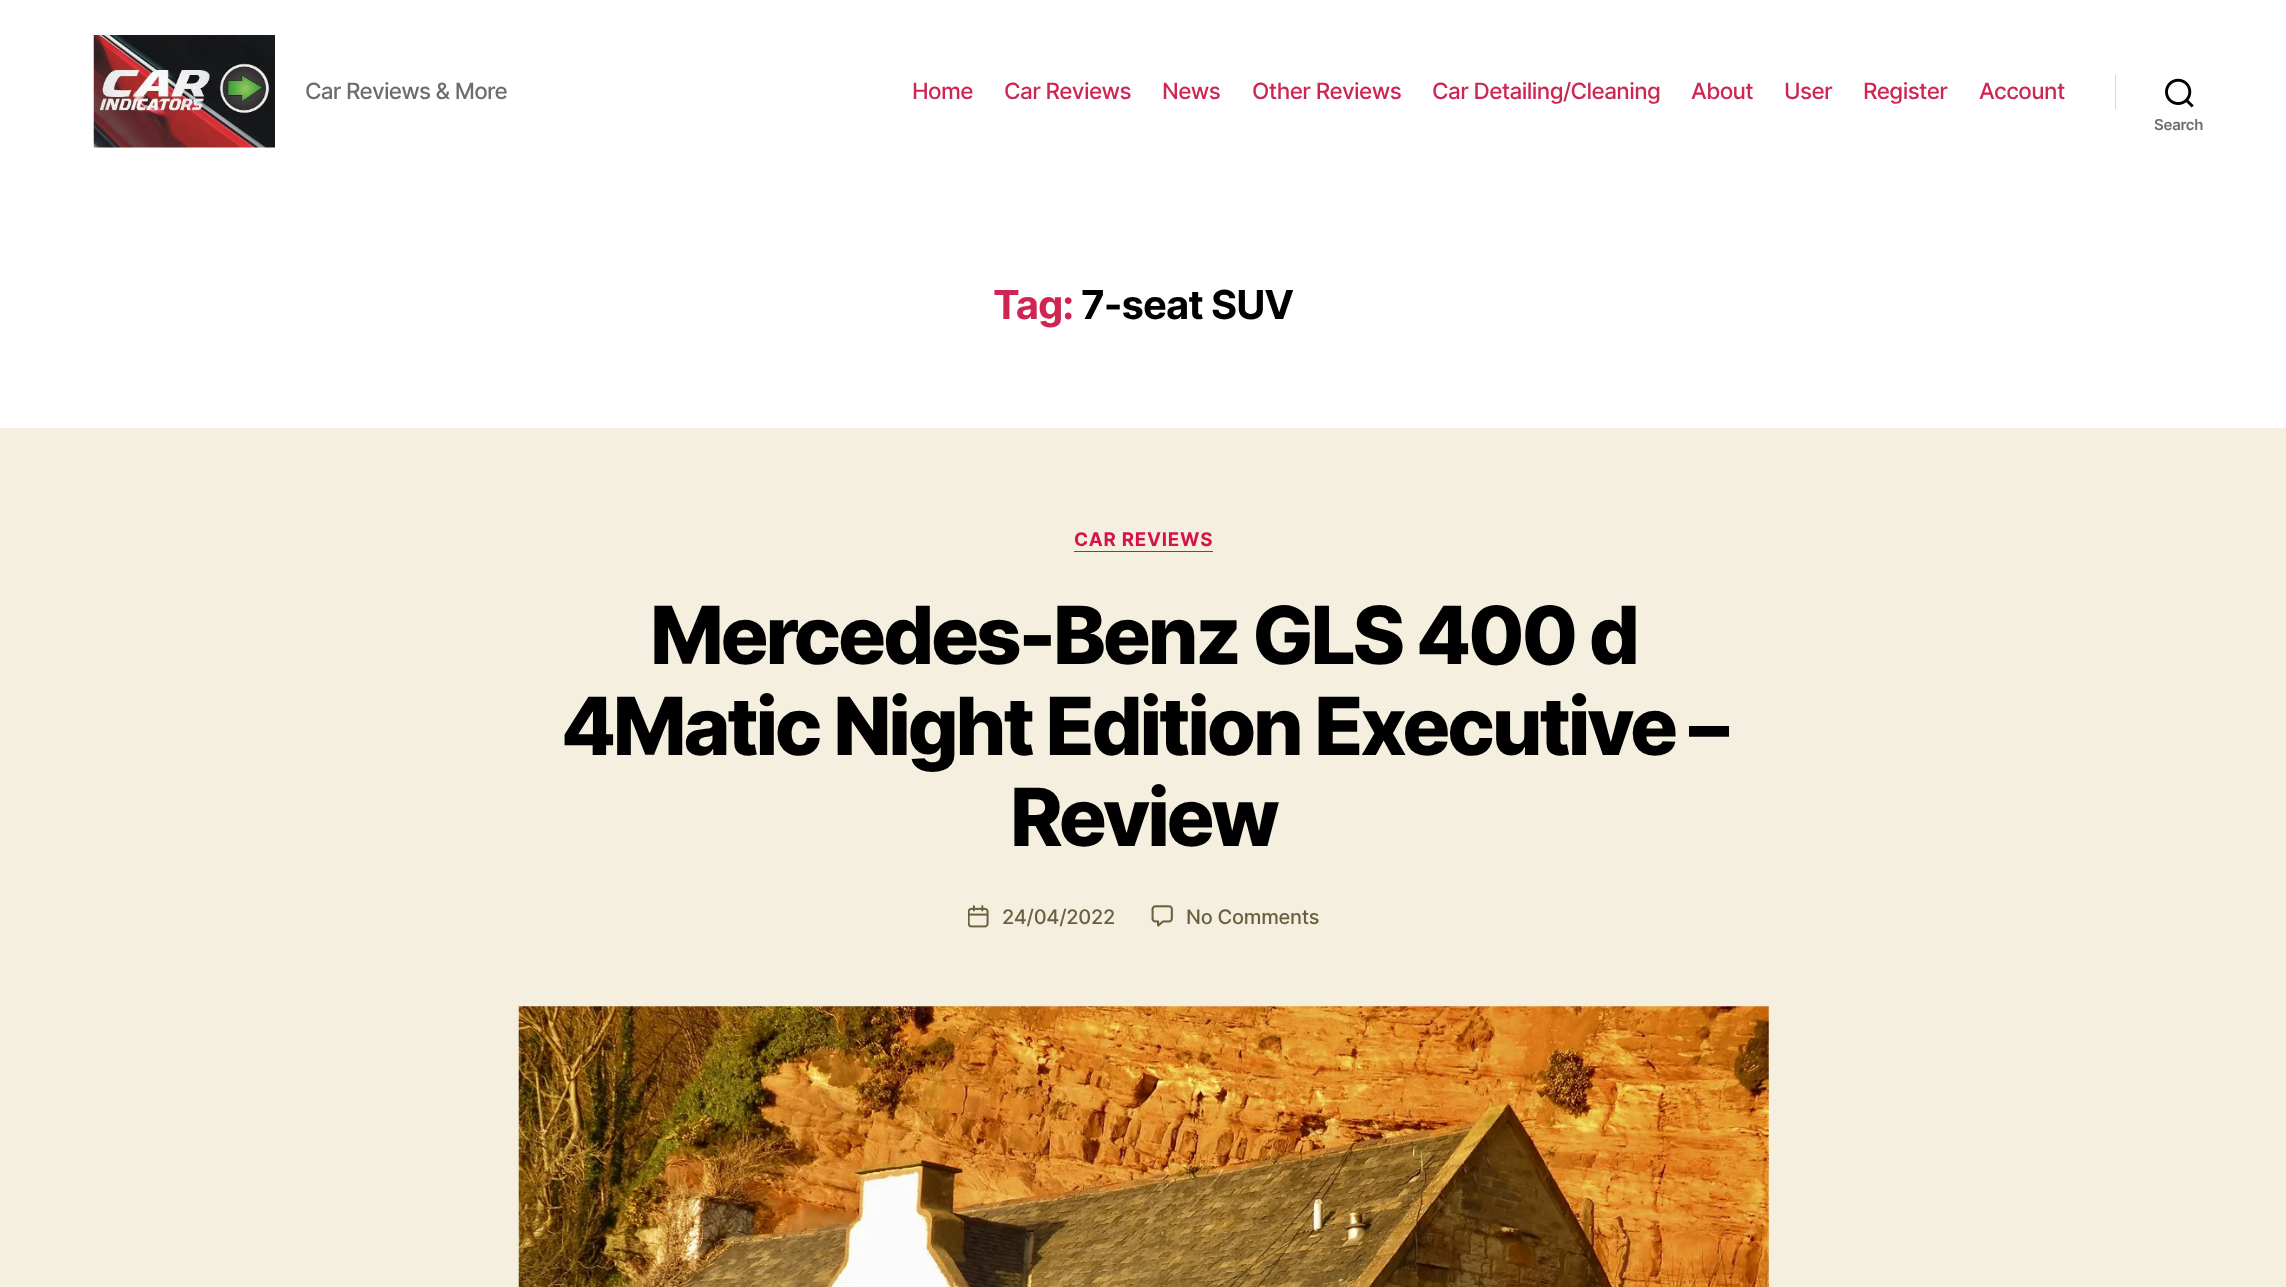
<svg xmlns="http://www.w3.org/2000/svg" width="2286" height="1287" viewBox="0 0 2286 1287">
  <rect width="100%" height="100%" fill="#f5efe0"/>
  <path d="M0 0h2286v428H0z" fill="#fff"/>
  <image x="93" y="35" width="182" height="113" href="img/1.png"/>
  <path d="M2115 75h1v34H2115z" fill="#dcd7ca"/>
  <image x="2165" y="78" width="29" height="30" href="img/2.png"/>
  <path d="M1074 551h139v1H1074z" fill="#d61347"/>
  <image x="968" y="905" width="21" height="23" href="img/3.png"/>
  <image x="1151" y="905" width="22" height="22" href="img/4.png"/>
  <image x="518" y="1006" width="1251" height="281" href="img/5.png"/>
  <text x="305" y="99" font-family="Inter" font-size="22.5" font-weight="500" letter-spacing="-0.75" fill="#6d6d6d">Car Reviews &amp; More</text>
  <g font-family="Inter" font-size="22.5" font-weight="500" letter-spacing="-0.6" fill="#cd2653">
    <text x="912" y="99">Home</text>
    <text x="1004" y="99">Car Reviews</text>
    <text x="1162" y="99">News</text>
    <text x="1252" y="99">Other Reviews</text>
    <text x="1432" y="99">Car Detailing/Cleaning</text>
    <text x="1691" y="99">About</text>
    <text x="1784" y="99">User</text>
    <text x="1863" y="99">Register</text>
    <text x="1979" y="99">Account</text>
  </g>
  <text x="2154" y="130" font-family="Inter" font-size="15" font-weight="600" letter-spacing="-0.25" fill="#6d6d6d">Search</text>
  <text x="993" y="319" font-family="Inter" font-size="40" font-weight="bold" letter-spacing="-1" fill="#cd2653">Tag:</text>
  <text x="1081" y="319" font-family="Inter" font-size="40" font-weight="bold" letter-spacing="-1" fill="#000">7-seat SUV</text>
  <text x="1074" y="546" font-family="Inter" font-size="18.75" font-weight="bold" letter-spacing="0.75" fill="#d61347">CAR REVIEWS</text>
  <g font-family="Inter" font-size="80" font-weight="800" letter-spacing="-3.3" fill="#000">
    <text x="650" y="664">Mercedes-Benz GLS 400 d</text>
    <text x="561" y="755">4Matic Night Edition Executive –</text>
    <text x="1010" y="846">Review</text>
  </g>
  <g font-family="Inter" font-size="20" font-weight="500" letter-spacing="-0.25" fill="#69603e">
    <text x="1002" y="924">24/04/2022</text>
    <text x="1186" y="924">No Comments</text>
  </g>
</svg>
